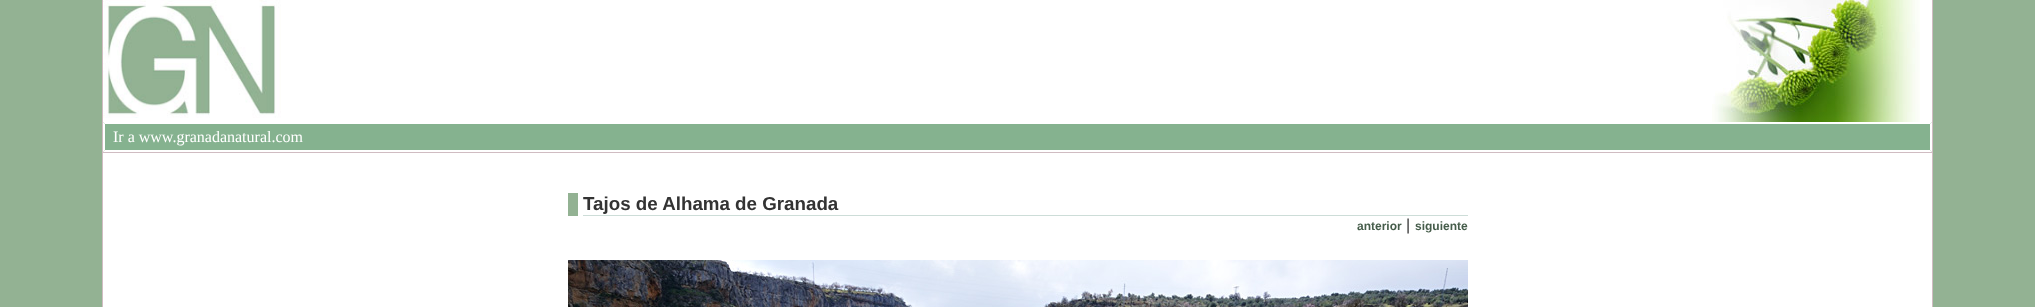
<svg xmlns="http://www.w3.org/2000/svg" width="2035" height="307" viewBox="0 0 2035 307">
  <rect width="100%" height="100%" fill="#93b293"/>
  <path d="M102 0h1v307H102z" fill="#d0bcc2"/>
  <path d="M103 0h1829v122H103z" fill="#fff"/>
  <image x="103" y="0" width="178" height="118" href="img/1.png"/>
  <image x="1712" y="0" width="208" height="122" href="img/2.png"/>
  <path d="M1932 0h1v307H1932z" fill="#d0bcc2"/>
  <path d="M105 124h1825v26H105z" fill="#85b28f"/>
  <path d="M103.5 122.5h1828v29H103.5z" fill="none" stroke="#fff"/>
  <path d="M104.5 123.5h1826v27H104.5z" fill="none" stroke="#fff"/>
  <path d="M103 153h1829v154H103z" fill="#fff"/>
  <path d="M103 152h1829v1H103z" fill="#d0bcc2"/>
  <path d="M568 193h10v23H568z" fill="#93b293"/>
  <path d="M583 215h885v1H583z" fill="#cdddd8"/>
  <image x="568" y="260" width="900" height="47" href="img/3.png"/>
  <text x="113" y="142" font-family="Liberation Serif" font-size="16" fill="#fff">Ir a www.granadanatural.com</text>
  <text x="583" y="210" font-family="Liberation Sans" font-size="18.75" font-weight="bold" fill="#333">Tajos de Alhama de Granada</text>
  <text x="1357" y="230" font-family="Liberation Sans" font-size="12" font-weight="bold" fill="#465d4b">anterior</text>
  <text x="1406" y="230" font-family="Liberation Sans" font-size="16" fill="#333">|</text>
  <text x="1415" y="230" font-family="Liberation Sans" font-size="12" font-weight="bold" fill="#465d4b">siguiente</text>
</svg>
